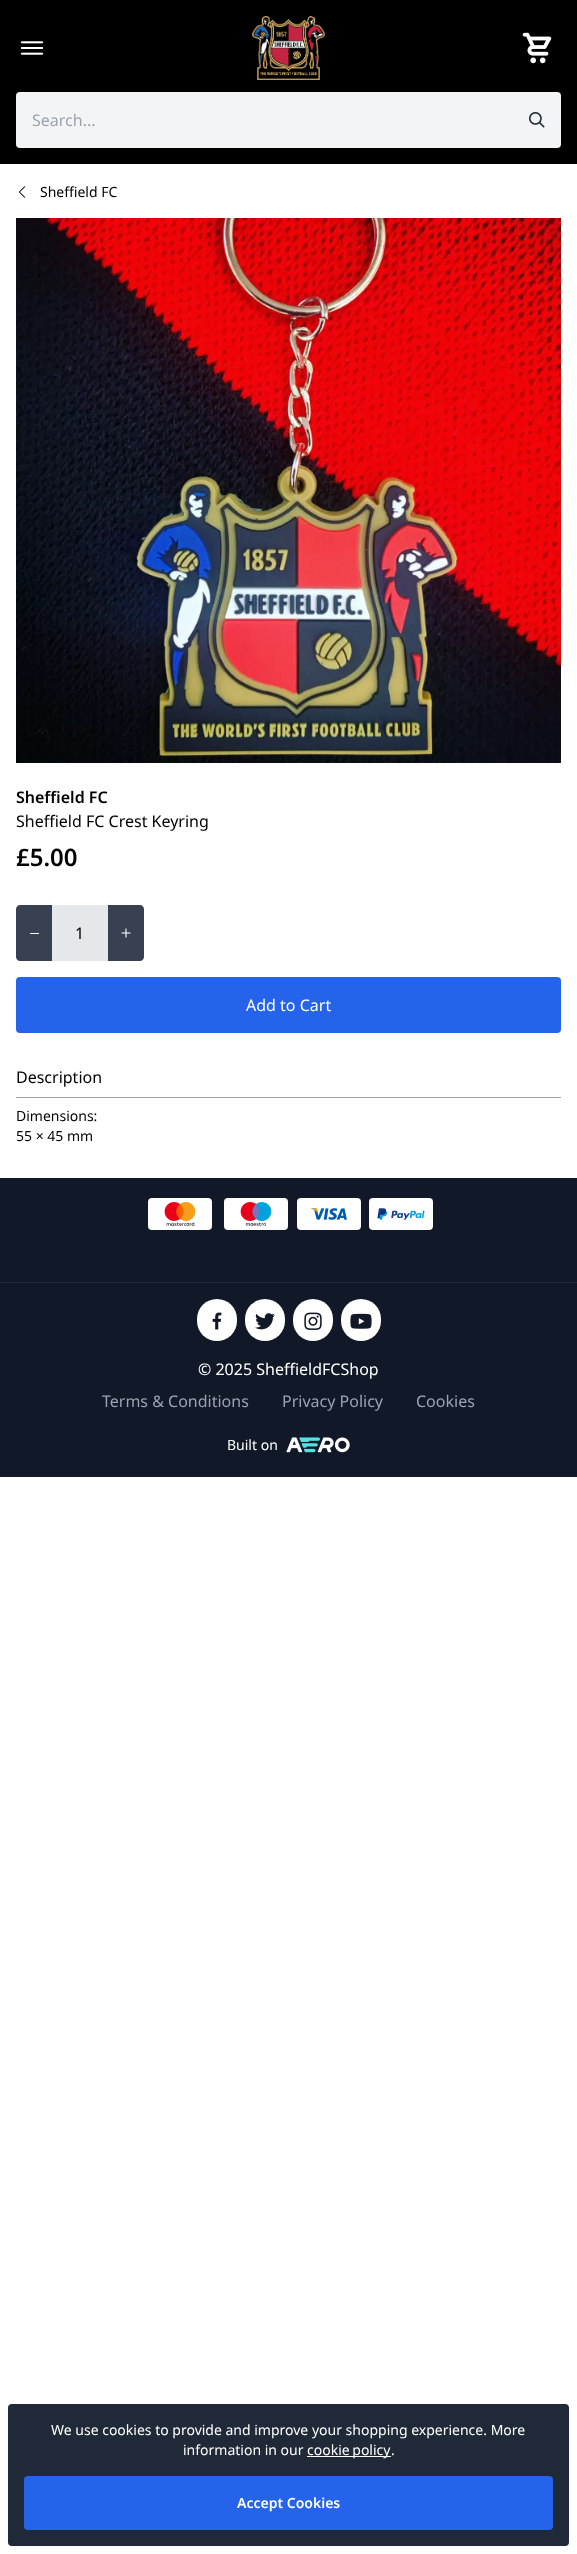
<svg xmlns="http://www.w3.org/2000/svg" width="577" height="2554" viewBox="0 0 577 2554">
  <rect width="100%" height="100%" fill="#fff"/>
  <path d="M0 0h577v164H0z" fill="#000"/>
  <image x="20" y="41" width="24" height="14" href="img/1.png"/>
  <image x="252" y="16" width="73" height="64" href="img/2.png"/>
  <image x="522" y="32" width="30" height="32" href="img/3.png"/>
  <rect x="16" y="92" width="545" height="56" rx="4" fill="#f3f4f6"/>
  <image x="529" y="112" width="16" height="16" href="img/4.png"/>
  <image x="18" y="186" width="8" height="12" href="img/5.png"/>
  <image x="16" y="218" width="545" height="545" href="img/6.png"/>
  <path d="M20 905H52V961H20C18 961 16 959 16 957V909C16 907 18 905 20 905Z" fill="#374151"/>
  <path d="M30 933h9v1H30z" fill="#fff"/>
  <path d="M52 905h56v56H52z" fill="#e5e7eb"/>
  <path d="M108 905H140C142 905 144 907 144 909V957C144 959 142 961 140 961H108Z" fill="#374151"/>
  <image x="121" y="928" width="10" height="10" href="img/7.png"/>
  <rect x="16" y="977" width="545" height="56" rx="4" fill="#2563eb"/>
  <path d="M16 1097h545v1H16z" fill="#9ca3af"/>
  <path d="M0 1178h577v104H0z" fill="#111827"/>
  <rect x="148" y="1198" width="64" height="32" rx="4" fill="#fff"/>
  <image x="164" y="1202" width="32" height="24" href="img/8.png"/>
  <rect x="224" y="1198" width="64" height="32" rx="4" fill="#fff"/>
  <image x="240" y="1202" width="32" height="24" href="img/9.png"/>
  <rect x="297" y="1198" width="64" height="32" rx="4" fill="#fff"/>
  <image x="311" y="1208" width="36" height="12" href="img/10.png"/>
  <rect x="369" y="1198" width="64" height="32" rx="4" fill="#fff"/>
  <image x="377" y="1208" width="48" height="12" href="img/11.png"/>
  <path d="M0 1283h577v194H0z" fill="#111827"/>
  <path d="M0 1282h577v1H0z" fill="#1f2937"/>
  <rect x="197" y="1299" width="40" height="42" rx="20" fill="#fff"/>
  <image x="212" y="1312" width="10" height="18" href="img/12.png"/>
  <rect x="245" y="1299" width="40" height="42" rx="20" fill="#fff"/>
  <image x="255" y="1313" width="20" height="17" href="img/13.png"/>
  <rect x="293" y="1299" width="40" height="42" rx="20" fill="#fff"/>
  <image x="304" y="1312" width="18" height="18" href="img/14.png"/>
  <rect x="341" y="1299" width="40" height="42" rx="20" fill="#fff"/>
  <image x="350" y="1313" width="22" height="16" href="img/15.png"/>
  <image x="286" y="1437" width="64" height="16" href="img/16.png"/>
  <rect x="8" y="2404" width="561" height="142" rx="4" fill="#1f2937"/>
  <path d="M307 2456h84v1H307z" fill="#fff"/>
  <rect x="24" y="2476" width="529" height="54" rx="4" fill="#2563eb"/>
  <text x="32" y="126" font-family="Noto Sans" font-size="16" fill="#9ca3af">Search...</text>
  <text x="40" y="197" font-family="Noto Sans" font-size="14" fill="#000">Sheffield FC</text>
  <text x="16" y="803" font-family="Noto Sans" font-size="16" font-weight="600" fill="#000">Sheffield FC</text>
  <text x="16" y="827" font-family="Noto Sans" font-size="16" fill="#000">Sheffield FC Crest Keyring</text>
  <text x="16" y="866" font-family="Noto Sans" font-size="24" font-weight="600" fill="#000">£5.00</text>
  <text x="75" y="939" font-family="Noto Sans" font-size="16" fill="#000">1</text>
  <text x="246" y="1011" font-family="Noto Sans" font-size="16" fill="#fff">Add to Cart</text>
  <text x="16" y="1083" font-family="Noto Sans" font-size="16" fill="#000">Description</text>
  <g font-family="Noto Sans" font-size="14" fill="#000">
    <text x="16" y="1121">Dimensions:</text>
    <text x="16" y="1141">55 × 45 mm</text>
  </g>
  <text x="198" y="1375" font-family="Noto Sans" font-size="16" fill="#fff">© 2025 SheffieldFCShop</text>
  <g font-family="Noto Sans" font-size="16" fill="#9ca3af">
    <text x="102" y="1407">Terms &amp; Conditions</text>
    <text x="282" y="1407">Privacy Policy</text>
    <text x="416" y="1407">Cookies</text>
  </g>
  <g font-family="Noto Sans" font-size="14" fill="#fff">
    <text x="227" y="1450">Built on</text>
    <text x="51" y="2435">We use cookies to provide and improve your shopping experience. More</text>
    <text x="183" y="2455">information in our</text>
    <text x="307" y="2455" word-spacing="-1">cookie policy</text>
    <text x="391" y="2455">.</text>
  </g>
  <text x="237" y="2508" font-family="Noto Sans" font-size="14" font-weight="600" fill="#fff">Accept Cookies</text>
</svg>
